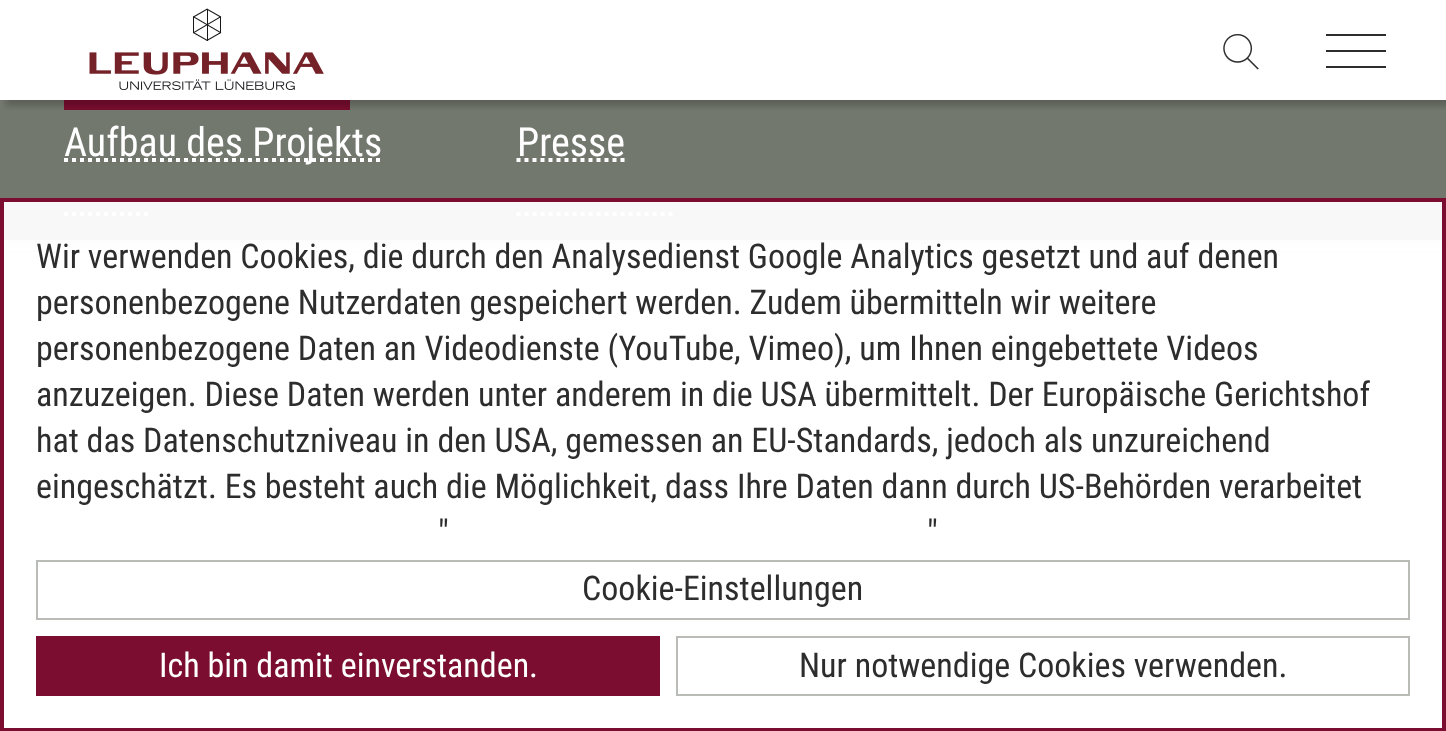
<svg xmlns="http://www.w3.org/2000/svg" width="1446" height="731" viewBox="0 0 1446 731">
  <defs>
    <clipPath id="clip1"><path d="M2 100h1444v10H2z"/></clipPath>
  </defs>
  <rect width="100%" height="100%" fill="#fff"/>
  <image x="89" y="8" width="235" height="82" href="img/1.png"/>
  <path d="M6 106h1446v140H6z" fill="#00000033" filter="blur(3px)"/>
  <path d="M0 100h1446v140H0z" fill="#73786e"/>
  <path d="M64 100h286v10H64z" fill="#7b0e30"/>
  <image x="1223" y="33" width="36" height="37" href="img/2.png"/>
  <path d="M1326 50h60v2H1326z" fill="#2d2d2d"/>
  <path d="M1326 34h60v2H1326z" fill="#2d2d2d"/>
  <path d="M1326 66h60v2H1326z" fill="#2d2d2d"/>
  <g clip-path="url(#clip1)">
    <path d="M6 -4h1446v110H6z" fill="#00000033" filter="blur(3px)"/>
  </g>
  <path d="M64 160H382" fill="none" stroke="#fff" stroke-width="4" stroke-dasharray="4 4"/>
  <path d="M516.5 160H624.5" fill="none" stroke="#fff" stroke-width="4" stroke-dasharray="4 4"/>
  <path d="M64 214H151" fill="none" stroke="#fff" stroke-width="4" stroke-dasharray="4 4"/>
  <path d="M516.5 214H676.5" fill="none" stroke="#fff" stroke-width="4" stroke-dasharray="4 4"/>
  <path d="M4 202h1438v49H4z" fill="#fffffff2"/>
  <path d="M2 200h1442v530H2z" fill="none" stroke="#7b0e30" stroke-width="4"/>
  <path d="M37 561h1372v58H37z" fill="none" stroke="#b9bbb6" stroke-width="2"/>
  <path d="M36 636h624v60H36z" fill="#7b0e30"/>
  <path d="M677 637h732v58H677z" fill="none" stroke="#b9bbb6" stroke-width="2"/>
  <g font-family="Roboto Condensed" font-size="40" fill="#fff">
    <text x="64" y="156">Aufbau des Projekts</text>
    <text x="517" y="156">Presse</text>
  </g>
  <g font-family="Roboto Condensed" font-size="34" fill="#2d2d2d">
    <text x="36" y="268">Wir verwenden Cookies, die durch den Analysedienst Google Analytics gesetzt und auf denen</text>
    <text x="36" y="314">personenbezogene Nutzerdaten gespeichert werden. Zudem übermitteln wir weitere</text>
    <text x="36" y="360">personenbezogene Daten an Videodienste (YouTube, Vimeo), um Ihnen eingebettete Videos</text>
    <text x="36" y="406">anzuzeigen. Diese Daten werden unter anderem in die USA übermittelt. Der Europäische Gerichtshof</text>
    <text x="36" y="452">hat das Datenschutzniveau in den USA, gemessen an EU-Standards, jedoch als unzureichend</text>
    <text x="36" y="498">eingeschätzt. Es besteht auch die Möglichkeit, dass Ihre Daten dann durch US-Behörden verarbeitet</text>
    <text x="438" y="544">"</text>
    <text x="927" y="544">"</text>
    <text x="582" y="600">Cookie-Einstellungen</text>
  </g>
  <text x="159" y="677" font-family="Roboto Condensed" font-size="34" fill="#fff">Ich bin damit einverstanden.</text>
  <text x="799" y="677" font-family="Roboto Condensed" font-size="34" fill="#2d2d2d">Nur notwendige Cookies verwenden.</text>
</svg>
